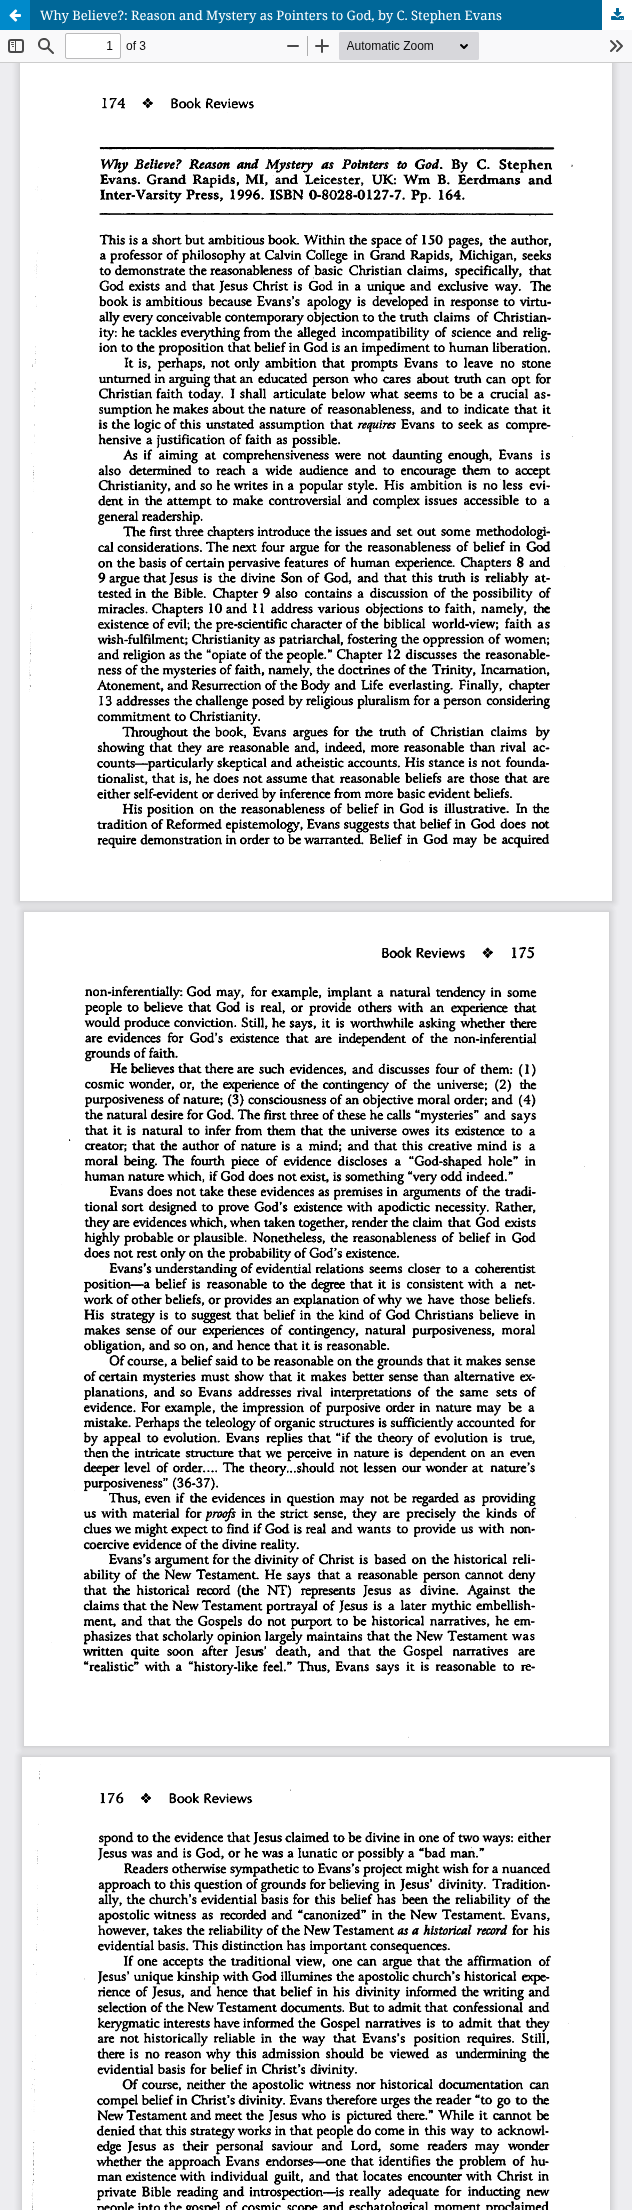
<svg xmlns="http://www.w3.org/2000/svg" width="632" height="2210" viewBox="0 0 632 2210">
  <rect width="100%" height="100%" fill="#fff"/>
  <path d="M30 0h572v30H30z" fill="#006798"/>
  <path d="M0 0h30v30H0z" fill="#008acb"/>
  <image x="9" y="9" width="12" height="13" href="img/1.png"/>
  <image x="611" y="8" width="13" height="12" href="img/2.png"/>
  <image x="0" y="30" width="632" height="2180" href="img/3.png"/>
  <text x="40" y="20" font-family="Noto Serif" font-size="13" fill="#fff">Why Believe?: Reason and Mystery as Pointers to God, by C. Stephen Evans</text>
</svg>
